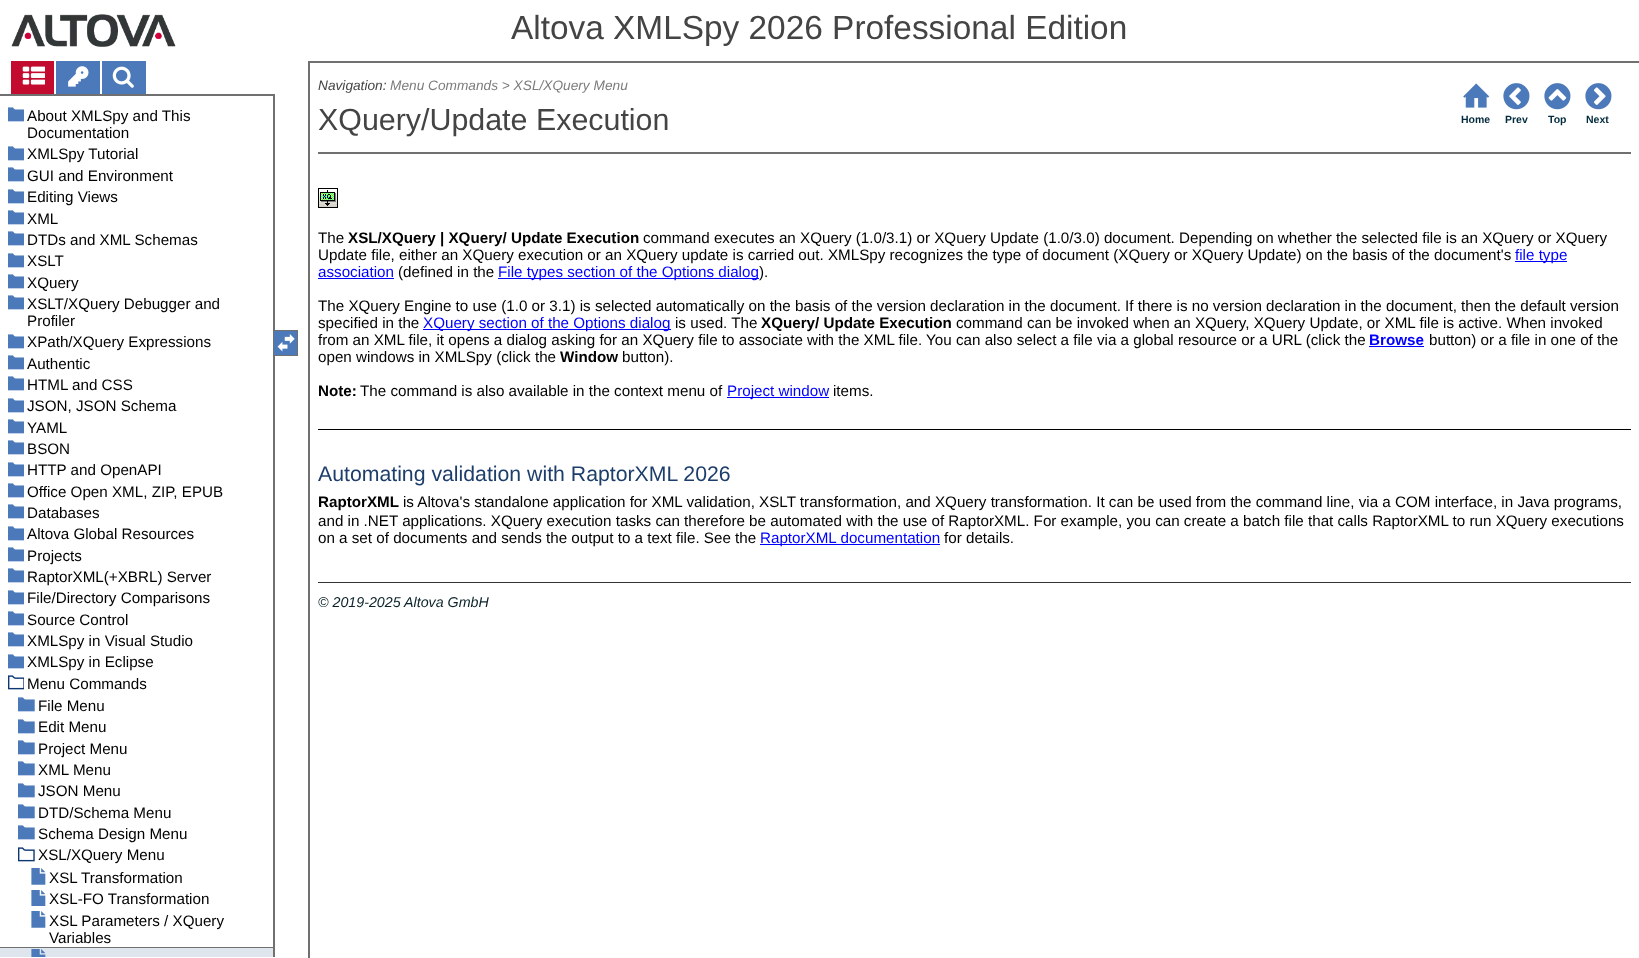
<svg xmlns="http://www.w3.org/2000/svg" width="1639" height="958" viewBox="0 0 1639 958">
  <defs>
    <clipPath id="clip1"><path d="M0 866h273v91H0z"/></clipPath>
  </defs>
  <rect width="100%" height="100%" fill="#fff"/>
  <image x="11" y="14" width="165" height="33" href="img/1.png"/>
  <path d="M11 61h43v33H11z" fill="#c20b2f"/>
  <path d="M56 61h44v33H56z" fill="#4c79b9"/>
  <path d="M102 61h44v33H102z" fill="#4c79b9"/>
  <image x="22" y="66" width="23" height="19" href="img/2.png"/>
  <image x="68" y="66" width="21" height="21" href="img/3.png"/>
  <image x="112" y="66" width="22" height="22" href="img/4.png"/>
  <path d="M0 94h275v2H0z" fill="#707070"/>
  <path d="M273 94h2v863H273z" fill="#707070"/>
  <image x="8" y="107" width="16" height="15" href="img/5.png"/>
  <image x="8" y="146" width="16" height="15" href="img/5.png"/>
  <image x="8" y="167" width="16" height="15" href="img/5.png"/>
  <image x="8" y="189" width="16" height="15" href="img/5.png"/>
  <image x="8" y="210" width="16" height="15" href="img/5.png"/>
  <image x="8" y="231" width="16" height="15" href="img/5.png"/>
  <image x="8" y="253" width="16" height="15" href="img/5.png"/>
  <image x="8" y="274" width="16" height="15" href="img/5.png"/>
  <image x="8" y="295" width="16" height="15" href="img/5.png"/>
  <image x="8" y="334" width="16" height="15" href="img/5.png"/>
  <image x="8" y="355" width="16" height="15" href="img/5.png"/>
  <image x="8" y="376" width="16" height="15" href="img/5.png"/>
  <image x="8" y="398" width="16" height="15" href="img/5.png"/>
  <image x="8" y="419" width="16" height="15" href="img/5.png"/>
  <image x="8" y="440" width="16" height="15" href="img/5.png"/>
  <image x="8" y="462" width="16" height="15" href="img/5.png"/>
  <image x="8" y="483" width="16" height="15" href="img/5.png"/>
  <image x="8" y="504" width="16" height="15" href="img/5.png"/>
  <image x="8" y="526" width="16" height="15" href="img/5.png"/>
  <image x="8" y="547" width="16" height="15" href="img/5.png"/>
  <image x="8" y="568" width="16" height="15" href="img/5.png"/>
  <image x="8" y="590" width="16" height="15" href="img/5.png"/>
  <image x="8" y="611" width="16" height="15" href="img/5.png"/>
  <image x="8" y="632" width="16" height="15" href="img/5.png"/>
  <image x="8" y="654" width="16" height="15" href="img/5.png"/>
  <image x="8" y="675" width="16" height="15" href="img/6.png"/>
  <image x="18" y="697" width="17" height="15" href="img/7.png"/>
  <image x="18" y="719" width="17" height="15" href="img/7.png"/>
  <image x="18" y="740" width="17" height="15" href="img/7.png"/>
  <image x="18" y="761" width="17" height="15" href="img/7.png"/>
  <image x="18" y="783" width="17" height="15" href="img/7.png"/>
  <image x="18" y="804" width="17" height="15" href="img/7.png"/>
  <image x="18" y="825" width="17" height="15" href="img/7.png"/>
  <image x="18" y="847" width="17" height="15" href="img/8.png"/>
  <image x="31" y="868" width="15" height="17" href="img/9.png"/>
  <image x="31" y="890" width="15" height="16" href="img/10.png"/>
  <image x="31" y="911" width="15" height="17" href="img/9.png"/>
  <path d="M0 948h273v9H0z" fill="#dfe5ec"/>
  <image x="31" y="949" width="15" height="8" href="img/11.png"/>
  <g clip-path="url(#clip1)">
    <path d="M-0.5 947.5h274v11H-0.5z" fill="none" stroke="#707070"/>
  </g>
  <path d="M274 331h23v24H274z" fill="#4c79b9"/>
  <path d="M274 330h24v1H274z" fill="#707070"/>
  <path d="M297 330h1v26H297z" fill="#707070"/>
  <path d="M274 355h24v1H274z" fill="#707070"/>
  <image x="277" y="334" width="18" height="18" href="img/12.png"/>
  <path d="M308 61h1331v2H308z" fill="#707070"/>
  <path d="M308 61h2v897H308z" fill="#707070"/>
  <image x="1463" y="83" width="27" height="25" href="img/13.png"/>
  <image x="1503" y="83" width="27" height="27" href="img/14.png"/>
  <image x="1544" y="83" width="27" height="27" href="img/15.png"/>
  <image x="1585" y="83" width="27" height="27" href="img/16.png"/>
  <path d="M318 152h1313v2H318z" fill="#707070"/>
  <image x="318" y="188" width="20" height="20" href="img/17.png"/>
  <path d="M1515 261h52v1H1515z" fill="#00f"/>
  <path d="M318 278h76v1H318z" fill="#00f"/>
  <path d="M498 278h261v1H498z" fill="#00f"/>
  <path d="M423 329h248v1H423z" fill="#00f"/>
  <path d="M1369 346h55v1H1369z" fill="#00f"/>
  <path d="M727 397h102v1H727z" fill="#00f"/>
  <path d="M318 429h1313v1H318z" fill="#000"/>
  <path d="M760 544h180v1H760z" fill="#00f"/>
  <path d="M318 582h1313v1H318z" fill="#333"/>
  <text x="511" y="39" font-family="Liberation Sans" font-size="33.4" fill="#444">Altova XMLSpy 2026 Professional Edition</text>
  <g font-family="Liberation Sans" font-size="15.2" fill="#000">
    <text x="27" y="121">About XMLSpy and This</text>
    <text x="27" y="138">Documentation</text>
    <text x="27" y="159">XMLSpy Tutorial</text>
    <text x="27" y="181">GUI and Environment</text>
    <text x="27" y="202">Editing Views</text>
    <text x="27" y="224">XML</text>
    <text x="27" y="245">DTDs and XML Schemas</text>
    <text x="27" y="266">XSLT</text>
    <text x="27" y="288">XQuery</text>
    <text x="27" y="309">XSLT/XQuery Debugger and</text>
    <text x="27" y="326">Profiler</text>
    <text x="27" y="347">XPath/XQuery Expressions</text>
    <text x="27" y="369">Authentic</text>
    <text x="27" y="390">HTML and CSS</text>
    <text x="27" y="411">JSON, JSON Schema</text>
    <text x="27" y="433">YAML</text>
    <text x="27" y="454">BSON</text>
    <text x="27" y="475">HTTP and OpenAPI</text>
    <text x="27" y="497">Office Open XML, ZIP, EPUB</text>
    <text x="27" y="518">Databases</text>
    <text x="27" y="539">Altova Global Resources</text>
    <text x="27" y="561">Projects</text>
    <text x="27" y="582">RaptorXML(+XBRL) Server</text>
    <text x="27" y="603">File/Directory Comparisons</text>
    <text x="27" y="625">Source Control</text>
    <text x="27" y="646">XMLSpy in Visual Studio</text>
    <text x="27" y="667">XMLSpy in Eclipse</text>
    <text x="27" y="689">Menu Commands</text>
    <text x="38" y="711">File Menu</text>
    <text x="38" y="732">Edit Menu</text>
    <text x="38" y="754">Project Menu</text>
    <text x="38" y="775">XML Menu</text>
    <text x="38" y="796">JSON Menu</text>
    <text x="38" y="818">DTD/Schema Menu</text>
    <text x="38" y="839">Schema Design Menu</text>
    <text x="38" y="860">XSL/XQuery Menu</text>
    <text x="49" y="883">XSL Transformation</text>
    <text x="49" y="904">XSL-FO Transformation</text>
    <text x="49" y="926">XSL Parameters / XQuery</text>
    <text x="49" y="943">Variables</text>
  </g>
  <text x="318" y="90" font-family="Liberation Sans" font-size="13.7" font-style="italic" fill="#444">Navigation:</text>
  <text x="390" y="90" font-family="Liberation Sans" font-size="13.7" font-style="italic" fill="#7c7c7c">Menu Commands &gt; XSL/XQuery Menu</text>
  <text x="318" y="130" font-family="Liberation Sans" font-size="30.4" fill="#444">XQuery/Update Execution</text>
  <g font-family="Liberation Sans" font-size="10.5" font-weight="bold" fill="#022b3e">
    <text x="1461" y="123">Home</text>
    <text x="1505" y="123">Prev</text>
    <text x="1548" y="123">Top</text>
    <text x="1586" y="123">Next</text>
  </g>
  <text x="318" y="243" font-family="Liberation Sans" font-size="15.2" fill="#000">The</text>
  <text x="348" y="243" font-family="Liberation Sans" font-size="15.2" font-weight="bold" fill="#000">XSL/XQuery | XQuery/ Update Execution</text>
  <g font-family="Liberation Sans" font-size="15.2" fill="#000">
    <text x="643" y="243">command executes an XQuery (1.0/3.1) or XQuery Update (1.0/3.0) document. Depending on whether the selected file is an XQuery or XQuery</text>
    <text x="318" y="260">Update file, either an XQuery execution or an XQuery update is carried out. XMLSpy recognizes the type of document (XQuery or XQuery Update) on the basis of the document's</text>
  </g>
  <g font-family="Liberation Sans" font-size="15.2" fill="#00f">
    <text x="1515" y="260">file type</text>
    <text x="318" y="277">association</text>
  </g>
  <text x="398" y="277" font-family="Liberation Sans" font-size="15.2" fill="#000">(defined in the</text>
  <text x="498" y="277" font-family="Liberation Sans" font-size="15.2" fill="#00f">File types section of the Options dialog</text>
  <g font-family="Liberation Sans" font-size="15.2" fill="#000">
    <text x="759" y="277">).</text>
    <text x="318" y="311">The XQuery Engine to use (1.0 or 3.1) is selected automatically on the basis of the version declaration in the document. If there is no version declaration in the document, then the default version</text>
    <text x="318" y="328">specified in the</text>
  </g>
  <text x="423" y="328" font-family="Liberation Sans" font-size="15.2" fill="#00f">XQuery section of the Options dialog</text>
  <text x="675" y="328" font-family="Liberation Sans" font-size="15.2" fill="#000">is used. The</text>
  <text x="761" y="328" font-family="Liberation Sans" font-size="15.2" font-weight="bold" fill="#000">XQuery/ Update Execution</text>
  <g font-family="Liberation Sans" font-size="15.2" fill="#000">
    <text x="956" y="328">command can be invoked when an XQuery, XQuery Update, or XML file is active. When invoked</text>
    <text x="318" y="345">from an XML file, it opens a dialog asking for an XQuery file to associate with the XML file. You can also select a file via a global resource or a URL (click the</text>
  </g>
  <text x="1369" y="345" font-family="Liberation Sans" font-size="15.2" font-weight="bold" fill="#00f">Browse</text>
  <g font-family="Liberation Sans" font-size="15.2" fill="#000">
    <text x="1429" y="345">button) or a file in one of the</text>
    <text x="318" y="362">open windows in XMLSpy (click the</text>
  </g>
  <text x="560" y="362" font-family="Liberation Sans" font-size="15.2" font-weight="bold" fill="#000">Window</text>
  <text x="622" y="362" font-family="Liberation Sans" font-size="15.2" fill="#000">button).</text>
  <text x="318" y="396" font-family="Liberation Sans" font-size="15.2" font-weight="bold" fill="#000">Note:</text>
  <text x="360" y="396" font-family="Liberation Sans" font-size="15.2" fill="#000">The command is also available in the context menu of</text>
  <text x="727" y="396" font-family="Liberation Sans" font-size="15.2" fill="#00f">Project window</text>
  <text x="833" y="396" font-family="Liberation Sans" font-size="15.2" fill="#000">items.</text>
  <text x="318" y="481" font-family="Liberation Sans" font-size="21.25" fill="#1d3e6b">Automating validation with RaptorXML 2026</text>
  <text x="318" y="507" font-family="Liberation Sans" font-size="15.2" font-weight="bold" fill="#000">RaptorXML</text>
  <g font-family="Liberation Sans" font-size="15.2" fill="#000">
    <text x="403" y="507">is Altova's standalone application for XML validation, XSLT transformation, and XQuery transformation. It can be used from the command line, via a COM interface, in Java programs,</text>
    <text x="318" y="526">and in .NET applications. XQuery execution tasks can therefore be automated with the use of RaptorXML. For example, you can create a batch file that calls RaptorXML to run XQuery executions</text>
    <text x="318" y="543">on a set of documents and sends the output to a text file. See the</text>
  </g>
  <text x="760" y="543" font-family="Liberation Sans" font-size="15.2" fill="#00f">RaptorXML documentation</text>
  <text x="944" y="543" font-family="Liberation Sans" font-size="15.2" fill="#000">for details.</text>
  <text x="318" y="607" font-family="Liberation Sans" font-size="14.25" font-style="italic" fill="#0a2229">© 2019-2025 Altova GmbH</text>
</svg>
